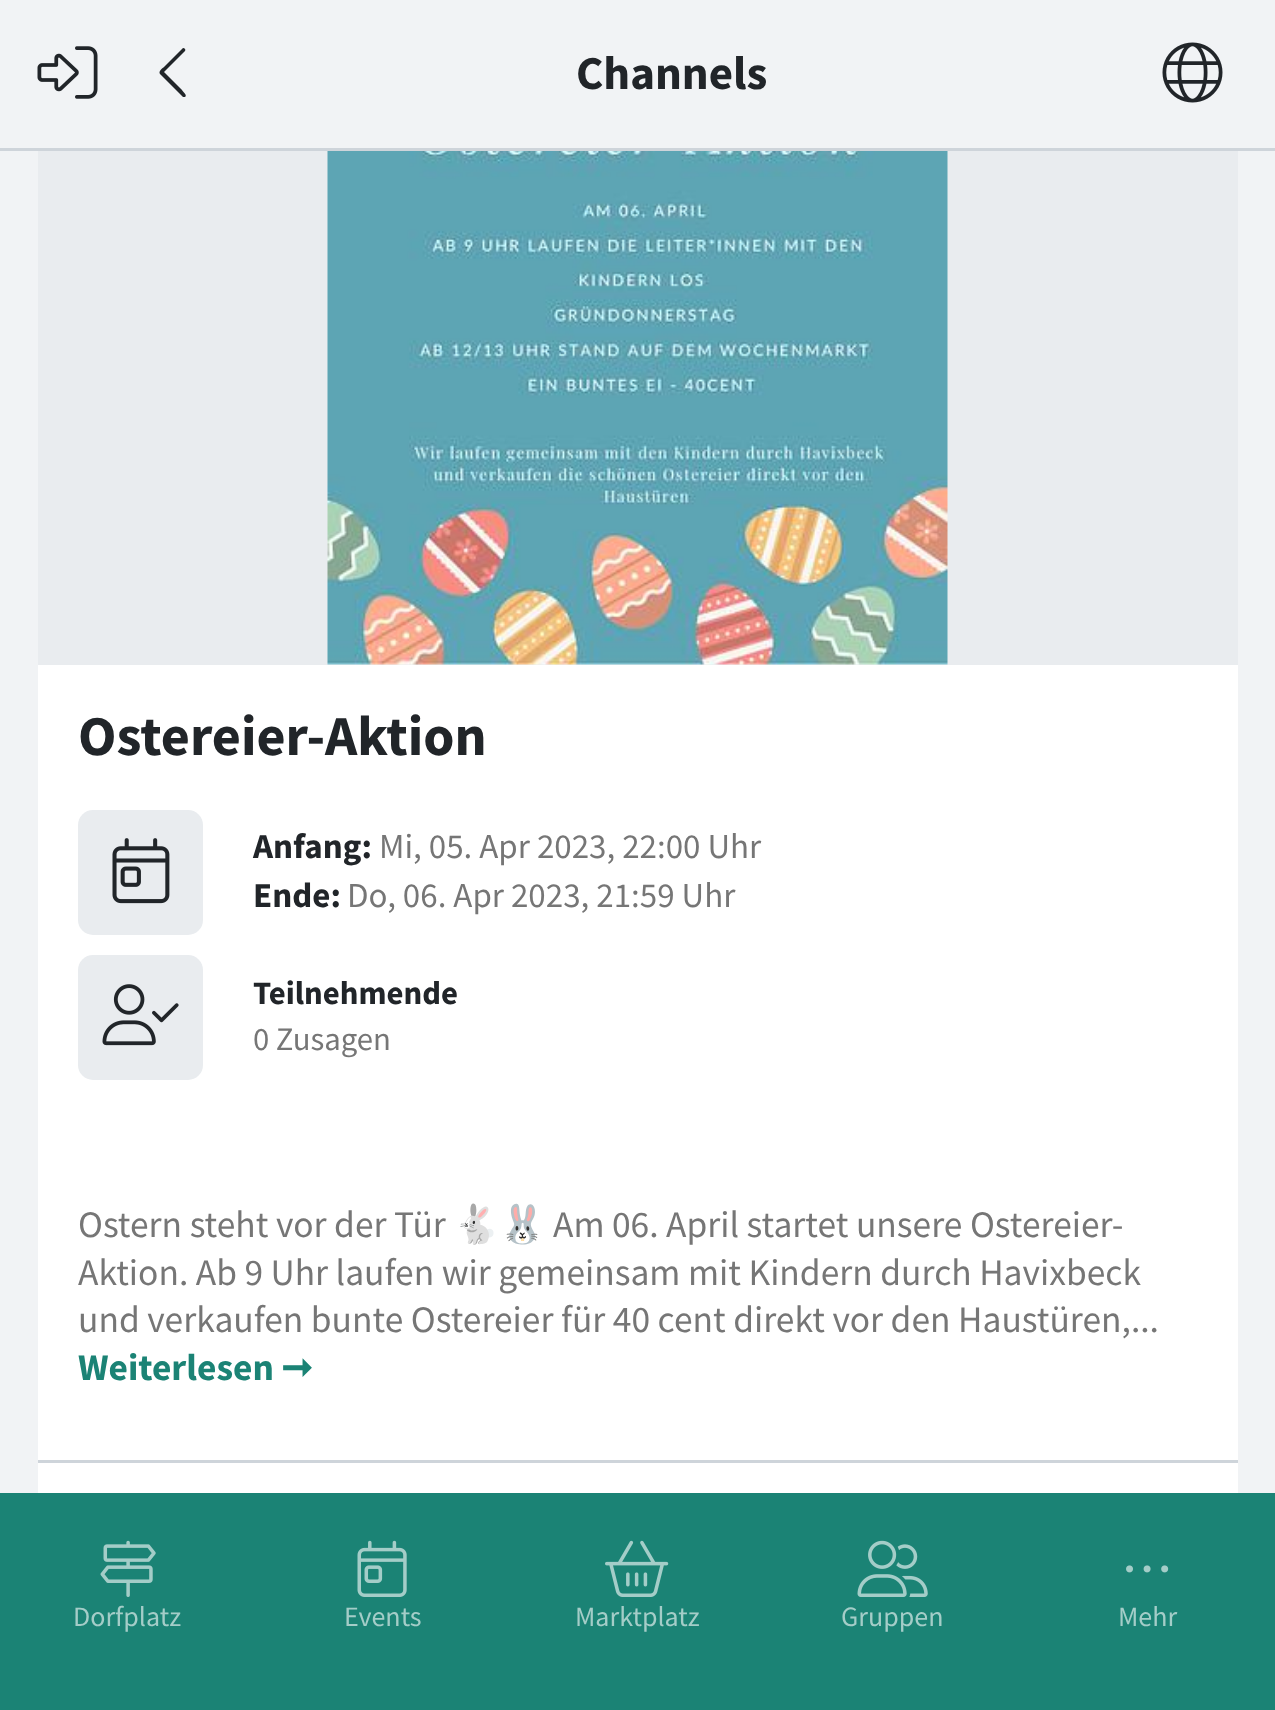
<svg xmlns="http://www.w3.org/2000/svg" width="1275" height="1710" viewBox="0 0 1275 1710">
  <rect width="100%" height="100%" fill="#f1f3f5"/>
  <path d="M0 148h1275v3H0z" fill="#ced4da"/>
  <image x="37" y="46" width="61" height="53" href="img/1.png"/>
  <path d="M160 74C158 71 163 68 164 67L183 48C185 48 186 50 185 51L164 72L182 90C182 91 188 95 185 97H183Z" fill="#212529"/>
  <image x="1162" y="42" width="61" height="61" href="img/2.png"/>
  <path d="M38 665h1200v828H38z" fill="#fff"/>
  <path d="M38 151h1200v514H38z" fill="#e9ecef"/>
  <image x="327" y="151" width="621" height="514" href="img/3.png"/>
  <rect x="78" y="810" width="125" height="125" rx="15" fill="#e9ecef"/>
  <image x="112" y="838" width="58" height="66" href="img/4.png"/>
  <rect x="78" y="955" width="125" height="125" rx="15" fill="#e9ecef"/>
  <image x="102" y="984" width="77" height="62" href="img/5.png"/>
  <path d="M38 1460h1200v3H38z" fill="#ced4da"/>
  <path d="M0 1493h1275v217H0z" fill="#1b8375"/>
  <image x="100" y="1540" width="56" height="57" href="img/6.png"/>
  <image x="357" y="1540" width="50" height="57" href="img/7.png"/>
  <image x="605" y="1540" width="64" height="57" href="img/8.png"/>
  <image x="857" y="1540" width="71" height="57" href="img/9.png"/>
  <image x="1126" y="1565" width="43" height="8" href="img/10.png"/>
  <text x="576" y="89" font-family="Source Sans Pro" font-size="47" font-weight="bold" fill="#212529">Channels</text>
  <text x="78" y="755" font-family="Source Sans Pro" font-size="56.25" font-weight="bold" fill="#212529">Ostereier-Aktion</text>
  <text x="253" y="858" font-family="Source Sans Pro" font-size="35" font-weight="bold" fill="#212529">Anfang:</text>
  <text x="379" y="858" font-family="Source Sans Pro" font-size="35" fill="#767676">Mi, 05. Apr 2023, 22:00 Uhr</text>
  <text x="253" y="907" font-family="Source Sans Pro" font-size="35" font-weight="bold" fill="#212529">Ende:</text>
  <text x="347" y="907" font-family="Source Sans Pro" font-size="35" fill="#767676">Do, 06. Apr 2023, 21:59 Uhr</text>
  <text x="253" y="1004" font-family="Source Sans Pro" font-size="32.75" font-weight="bold" fill="#212529">Teilnehmende</text>
  <text x="253" y="1050" font-family="Source Sans Pro" font-size="32.75" fill="#767676">0 Zusagen</text>
  <text x="78" y="1237" font-family="Source Sans Pro" font-size="37.5" fill="#767676">Ostern steht vor der Tür</text>
  <text x="453" y="1237" font-family="Noto Color Emoji" font-size="37.5" fill="#767676">🐇🐰</text>
  <g font-family="Source Sans Pro" font-size="37.5" fill="#767676">
    <text x="553" y="1237">Am 06. April startet unsere Ostereier-</text>
    <text x="78" y="1285">Aktion. Ab 9 Uhr laufen wir gemeinsam mit Kindern durch Havixbeck</text>
    <text x="78" y="1332">und verkaufen bunte Ostereier für 40 cent direkt vor den Haustüren,...</text>
  </g>
  <text x="78" y="1380" font-family="Source Sans Pro" font-size="37.5" font-weight="bold" fill="#1b8375">Weiterlesen</text>
  <text x="281" y="1380" font-family="DejaVu Sans" font-size="37.5" font-weight="bold" fill="#1b8375">➞</text>
  <g font-family="Source Sans Pro" font-size="28" fill="#a4cdc8">
    <text x="73" y="1626">Dorfplatz</text>
    <text x="344" y="1626">Events</text>
    <text x="575" y="1626">Marktplatz</text>
    <text x="841" y="1626">Gruppen</text>
    <text x="1118" y="1626">Mehr</text>
  </g>
</svg>
